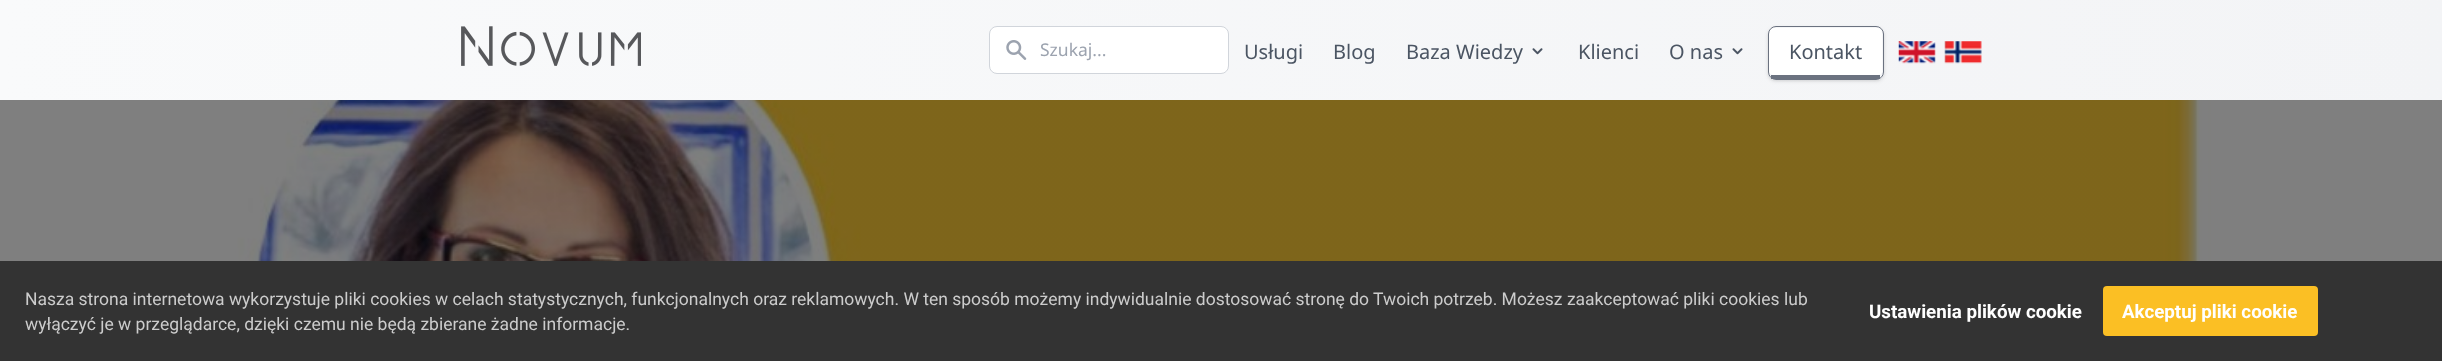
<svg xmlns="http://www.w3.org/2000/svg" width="2442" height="361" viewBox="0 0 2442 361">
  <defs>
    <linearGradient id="g1" gradientUnits="userSpaceOnUse" x1="0" y1="50" x2="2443" y2="50"><stop offset="0" stop-color="#f9fafb"/><stop offset="1" stop-color="#f3f4f6"/></linearGradient>
    <clipPath id="clip1"><path d="M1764 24H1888V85H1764ZM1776 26H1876C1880.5 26 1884 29.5 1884 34V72C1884 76.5 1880.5 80 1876 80H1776C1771.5 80 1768 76.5 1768 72V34C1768 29.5 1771.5 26 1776 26Z" clip-rule="evenodd"/></clipPath>
    <clipPath id="clip2"><path d="M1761 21H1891V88H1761ZM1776 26H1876C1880.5 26 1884 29.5 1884 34V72C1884 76.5 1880.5 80 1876 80H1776C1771.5 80 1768 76.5 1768 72V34C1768 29.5 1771.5 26 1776 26Z" clip-rule="evenodd"/></clipPath>
  </defs>
  <rect width="100%" height="100%" fill="#fff"/>
  <path d="M0 0h2442v100H0z" fill="url(#g1)"/>
  <image x="461" y="26" width="180" height="40" href="img/1.png"/>
  <rect x="989.5" y="26.5" width="239" height="47" rx="7.5" fill="#fff" stroke="#d1d5db"/>
  <image x="1006" y="40" width="21" height="20" href="img/2.png"/>
  <image x="1532" y="48" width="11" height="7" href="img/3.png"/>
  <image x="1732" y="48" width="11" height="7" href="img/4.png"/>
  <g clip-path="url(#clip1)">
    <rect x="1768" y="28" width="116" height="53" rx="8" fill="#0000000f" filter="blur(1px)"/>
  </g>
  <g clip-path="url(#clip2)">
    <rect x="1768" y="28" width="116" height="53" rx="8" fill="#0000001a" filter="blur(2px)"/>
  </g>
  <path d="M1775 28H1876C1880 28 1882 30 1882 34V72C1882 74 1880 75 1876 75H1775C1772 75 1769 74 1769 72V34C1769 30 1772 28 1775 28Z" fill="#fff"/>
  <rect x="1768.5" y="26.5" width="115" height="53" rx="7.5" fill="none" stroke="#6b7280"/>
  <path d="M1771 75h109v4H1771z" fill="#6b7280"/>
  <image x="1898" y="41" width="38" height="23" href="img/5.png"/>
  <image x="1944" y="41" width="38" height="23" href="img/6.png"/>
  <image x="0" y="100" width="2442" height="161" href="img/7.png"/>
  <path d="M0 261h2442v100H0z" fill="#333"/>
  <rect x="2103" y="286" width="215" height="50" rx="4" fill="#fbbf24"/>
  <text x="1040" y="56" font-family="Noto Sans" font-size="17.5" fill="#9ca3af">Szukaj...</text>
  <g font-family="Noto Sans" font-size="20" fill="#4b5563">
    <text x="1244" y="59">Usługi</text>
    <text x="1333" y="59">Blog</text>
    <text x="1406" y="59">Baza Wiedzy</text>
    <text x="1578" y="59">Klienci</text>
    <text x="1669" y="59">O nas</text>
    <text x="1789" y="59">Kontakt</text>
  </g>
  <g font-family="Roboto" font-size="17.5" fill="#ccc">
    <text x="25" y="305">Nasza strona internetowa wykorzystuje pliki cookies w celach statystycznych, funkcjonalnych oraz reklamowych. W ten sposób możemy indywidualnie dostosować stronę do Twoich potrzeb. Możesz zaakceptować pliki cookies lub</text>
    <text x="25" y="330">wyłączyć je w przeglądarce, dzięki czemu nie będą zbierane żadne informacje.</text>
  </g>
  <g font-family="Roboto" font-size="18.75" font-weight="bold" fill="#fff">
    <text x="1869" y="318">Ustawienia plików cookie</text>
    <text x="2122" y="318">Akceptuj pliki cookie</text>
  </g>
</svg>
